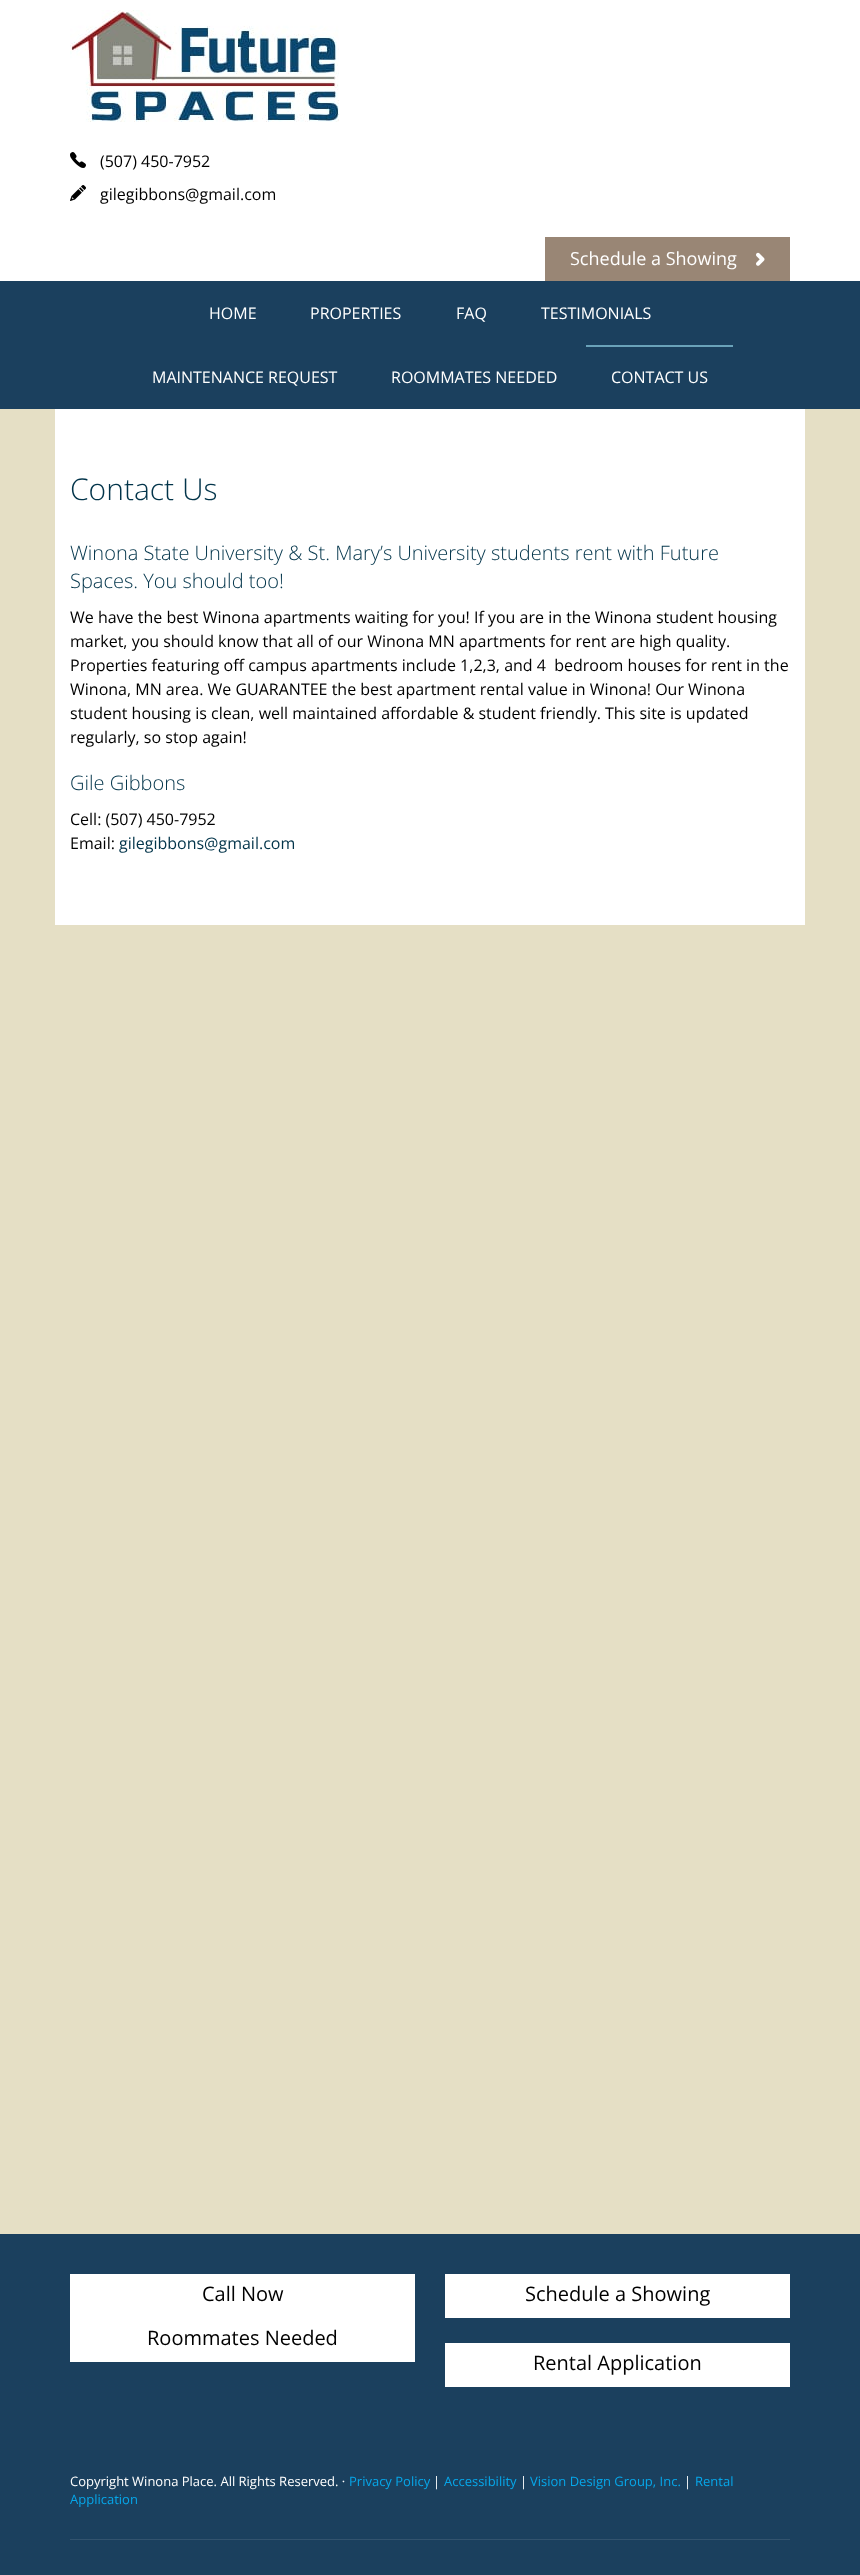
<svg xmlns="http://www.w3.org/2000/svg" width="860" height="2575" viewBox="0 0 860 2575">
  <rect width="100%" height="100%" fill="#fff"/>
  <image x="70" y="10" width="269" height="112" href="img/1.png"/>
  <image x="70" y="152" width="16" height="16" href="img/2.png"/>
  <image x="70" y="185" width="16" height="16" href="img/3.png"/>
  <path d="M545 237h245v44H545z" fill="#998675"/>
  <image x="756" y="252" width="9" height="14" href="img/4.png"/>
  <path d="M0 281h860v128H0z" fill="#1b405e"/>
  <path d="M586 345h147v2H586z" fill="#6aa2b9"/>
  <path d="M0 409h860v1825H0z" fill="#e5dfc5"/>
  <path d="M55 409h750v516H55z" fill="#fff"/>
  <path d="M0 2234h860v341H0z" fill="#1b405e"/>
  <path d="M70 2274h345v88H70z" fill="#fff"/>
  <path d="M445 2274h345v44H445z" fill="#fff"/>
  <path d="M445 2343h345v44H445z" fill="#fff"/>
  <path d="M70 2539h720v1H70z" fill="#32536e"/>
  <g font-family="Open Sans" font-size="16" fill="#000">
    <text x="100" y="167">(507) 450-7952</text>
    <text x="100" y="200">gilegibbons@gmail.com</text>
  </g>
  <text x="570" y="265" font-family="Open Sans" font-size="18" fill="#fff">Schedule a Showing</text>
  <g font-family="Open Sans" font-size="16" fill="#fff">
    <text x="209" y="319">HOME</text>
    <text x="310" y="319">PROPERTIES</text>
    <text x="456" y="319">FAQ</text>
    <text x="541" y="319">TESTIMONIALS</text>
    <text x="152" y="383">MAINTENANCE REQUEST</text>
    <text x="391" y="383">ROOMMATES NEEDED</text>
    <text x="611" y="383">CONTACT US</text>
  </g>
  <text x="70" y="500" font-family="Open Sans" font-size="30" font-weight="300" fill="#02344a">Contact Us</text>
  <g font-family="Open Sans" font-size="20" font-weight="300" fill="#02344a">
    <text x="70" y="560">Winona State University &amp; St. Mary’s University students rent with Future</text>
    <text x="70" y="588">Spaces. You should too!</text>
  </g>
  <g font-family="Open Sans" font-size="16" fill="#000">
    <text x="70" y="623">We have the best Winona apartments waiting for you! If you are in the Winona student housing</text>
    <text x="70" y="647">market, you should know that all of our Winona MN apartments for rent are high quality.</text>
    <text x="70" y="671" xml:space="preserve">Properties featuring off campus apartments include 1,2,3, and 4  bedroom houses for rent in the</text>
    <text x="70" y="695">Winona, MN area. We GUARANTEE the best apartment rental value in Winona! Our Winona</text>
    <text x="70" y="719">student housing is clean, well maintained affordable &amp; student friendly. This site is updated</text>
    <text x="70" y="743">regularly, so stop again!</text>
  </g>
  <text x="70" y="790" font-family="Open Sans" font-size="20" font-weight="300" fill="#02344a">Gile Gibbons</text>
  <g font-family="Open Sans" font-size="16" fill="#000">
    <text x="70" y="825">Cell: (507) 450-7952</text>
    <text x="70" y="849">Email:</text>
  </g>
  <text x="119" y="849" font-family="Open Sans" font-size="16" fill="#02344a">gilegibbons@gmail.com</text>
  <g font-family="Open Sans" font-size="20" fill="#000">
    <text x="202" y="2301">Call Now</text>
    <text x="525" y="2301">Schedule a Showing</text>
    <text x="147" y="2345">Roommates Needed</text>
    <text x="533" y="2370">Rental Application</text>
  </g>
  <text x="70" y="2486" font-family="Open Sans" font-size="13" fill="#fff">Copyright Winona Place. All Rights Reserved. ·</text>
  <text x="349" y="2486" font-family="Open Sans" font-size="13" fill="#06a7ea">Privacy Policy</text>
  <text x="433" y="2486" font-family="Open Sans" font-size="13" fill="#fff">|</text>
  <text x="444" y="2486" font-family="Open Sans" font-size="13" fill="#06a7ea">Accessibility</text>
  <text x="520" y="2486" font-family="Open Sans" font-size="13" fill="#fff">|</text>
  <text x="530" y="2486" font-family="Open Sans" font-size="13" fill="#06a7ea">Vision Design Group, Inc.</text>
  <text x="684" y="2486" font-family="Open Sans" font-size="13" fill="#fff">|</text>
  <g font-family="Open Sans" font-size="13" fill="#06a7ea">
    <text x="695" y="2486">Rental</text>
    <text x="70" y="2504">Application</text>
  </g>
</svg>
